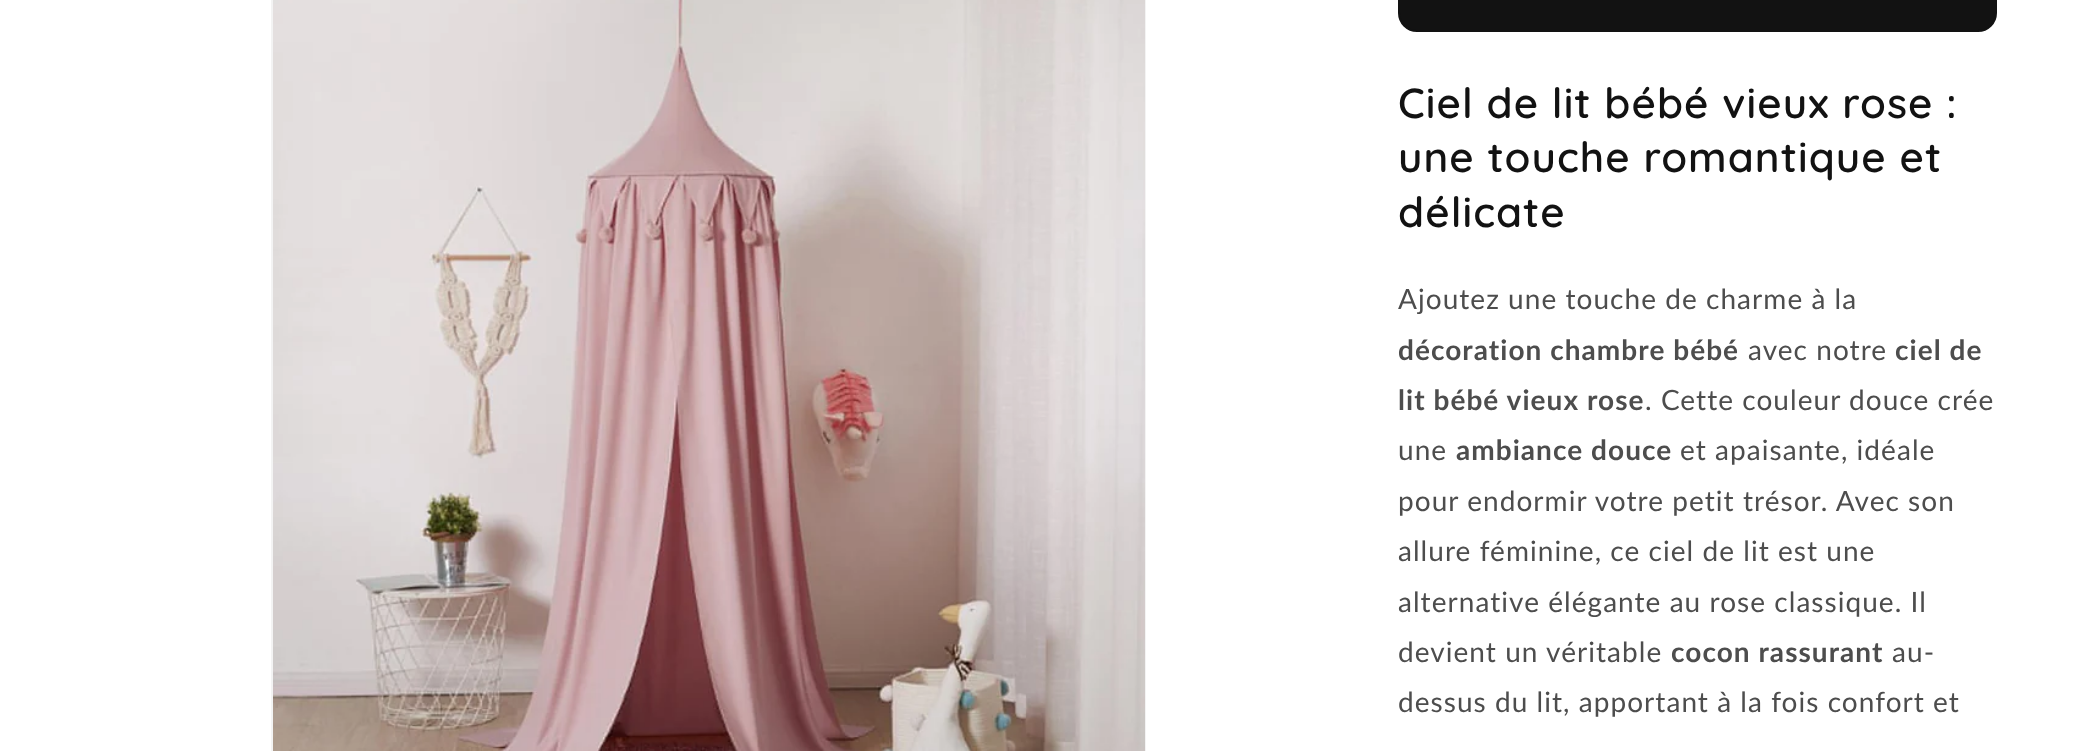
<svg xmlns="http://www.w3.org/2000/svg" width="2083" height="751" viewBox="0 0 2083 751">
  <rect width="100%" height="100%" fill="#fff"/>
  <path d="M272 -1h873v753H272z" fill="none" stroke="#f3f3f3" stroke-width="2"/>
  <image x="273" y="0" width="872" height="751" href="img/1.png"/>
  <rect x="1399" y="-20" width="597" height="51" rx="18" fill="#121212" stroke="#121212" stroke-width="2"/>
  <g font-family="Quicksand" font-size="42" font-weight="600" letter-spacing="1.05" fill="#121212">
    <text x="1398" y="118">Ciel de lit bébé vieux rose :</text>
    <text x="1398" y="172">une touche romantique et</text>
    <text x="1398" y="227">délicate</text>
  </g>
  <text x="1398" y="309" font-family="Lato" font-size="28" letter-spacing="1.05" fill="#4d4d4d">Ajoutez une touche de charme à la</text>
  <text x="1398" y="360" font-family="Lato" font-size="28" font-weight="bold" letter-spacing="1.05" fill="#4d4d4d">décoration chambre bébé</text>
  <text x="1748" y="360" font-family="Lato" font-size="28" letter-spacing="1.05" fill="#4d4d4d">avec notre</text>
  <g font-family="Lato" font-size="28" font-weight="bold" letter-spacing="1.05" fill="#4d4d4d">
    <text x="1895" y="360">ciel de</text>
    <text x="1398" y="410">lit bébé vieux rose</text>
  </g>
  <g font-family="Lato" font-size="28" letter-spacing="1.05" fill="#4d4d4d">
    <text x="1645" y="410">. Cette couleur douce crée</text>
    <text x="1398" y="460">une</text>
  </g>
  <text x="1456" y="460" font-family="Lato" font-size="28" font-weight="bold" letter-spacing="1.05" fill="#4d4d4d">ambiance douce</text>
  <g font-family="Lato" font-size="28" letter-spacing="1.05" fill="#4d4d4d">
    <text x="1680" y="460">et apaisante, idéale</text>
    <text x="1398" y="511">pour endormir votre petit trésor. Avec son</text>
    <text x="1398" y="561">allure féminine, ce ciel de lit est une</text>
    <text x="1398" y="612">alternative élégante au rose classique. Il</text>
    <text x="1398" y="662">devient un véritable</text>
  </g>
  <text x="1671" y="662" font-family="Lato" font-size="28" font-weight="bold" letter-spacing="1.05" fill="#4d4d4d">cocon rassurant</text>
  <g font-family="Lato" font-size="28" letter-spacing="1.05" fill="#4d4d4d">
    <text x="1892" y="662">au-</text>
    <text x="1398" y="712">dessus du lit, apportant à la fois confort et</text>
  </g>
</svg>
